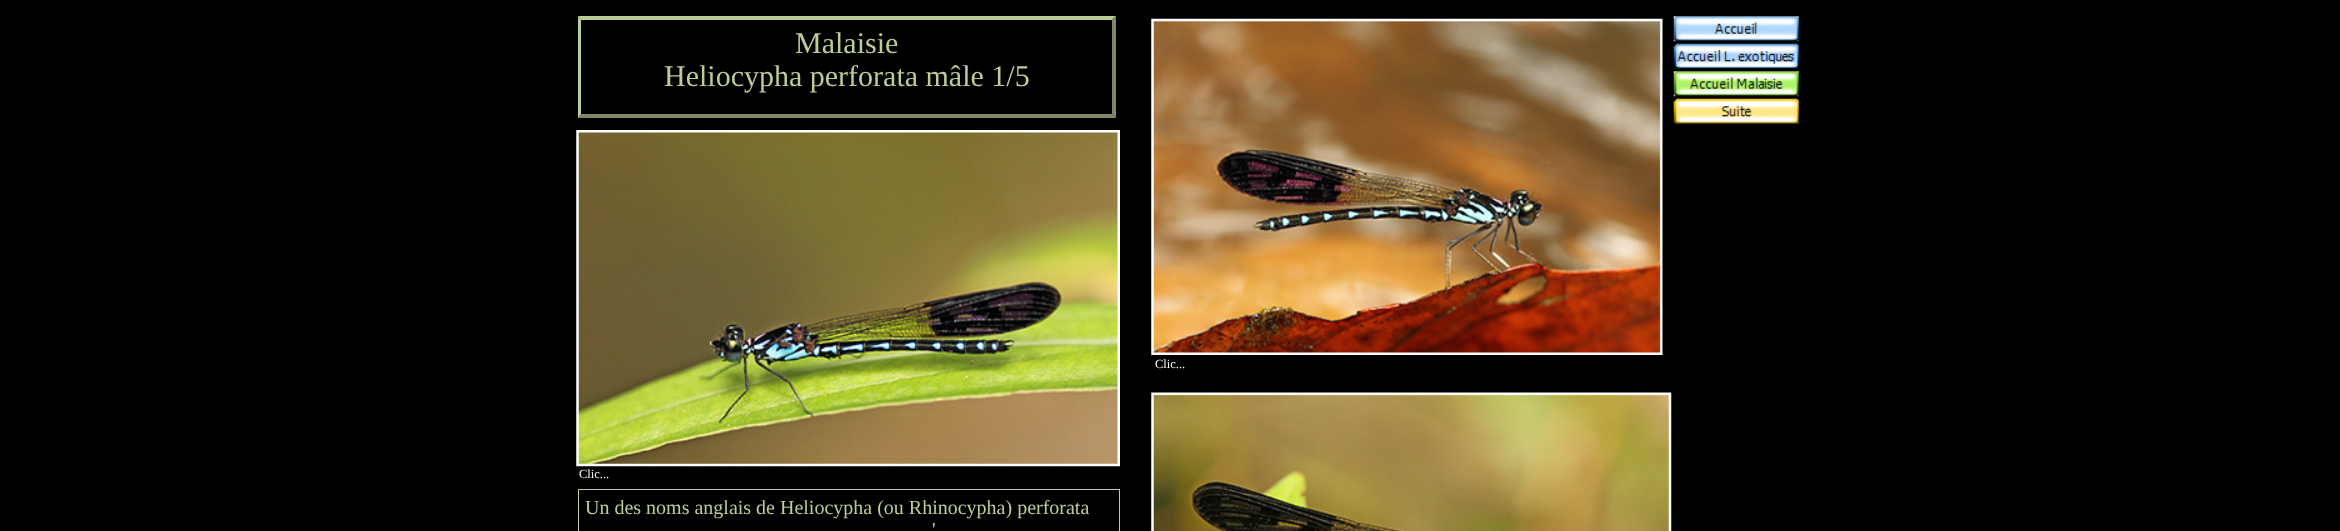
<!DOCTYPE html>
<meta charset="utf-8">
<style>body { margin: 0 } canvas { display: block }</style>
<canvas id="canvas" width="2340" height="531"></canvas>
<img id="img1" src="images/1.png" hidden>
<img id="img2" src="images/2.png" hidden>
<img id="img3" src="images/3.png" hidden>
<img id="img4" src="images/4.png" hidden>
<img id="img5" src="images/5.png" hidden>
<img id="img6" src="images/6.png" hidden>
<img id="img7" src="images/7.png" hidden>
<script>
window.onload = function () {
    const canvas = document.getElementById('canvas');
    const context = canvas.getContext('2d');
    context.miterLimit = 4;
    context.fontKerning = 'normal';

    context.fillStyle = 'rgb(0, 0, 0)';
    context.fillRect(0, 0, 2340, 531);
    context.fillStyle = 'rgb(186, 205, 150)';
    context.beginPath();
    context.moveTo(578, 16);
    context.lineTo(1116, 16);
    context.lineTo(1112, 20);
    context.lineTo(581, 20);
    context.closePath();
    context.fill();
    context.fillStyle = 'rgb(124, 137, 100)';
    context.beginPath();
    context.moveTo(1116, 16);
    context.lineTo(1116, 118);
    context.lineTo(1112, 114);
    context.lineTo(1112, 20);
    context.closePath();
    context.fill();
    context.beginPath();
    context.moveTo(1116, 118);
    context.lineTo(578, 118);
    context.lineTo(581, 114);
    context.lineTo(1112, 114);
    context.closePath();
    context.fill();
    context.fillStyle = 'rgb(186, 205, 150)';
    context.beginPath();
    context.moveTo(578, 118);
    context.lineTo(578, 16);
    context.lineTo(581, 20);
    context.lineTo(581, 114);
    context.closePath();
    context.fill();
    context.drawImage(document.getElementById('img1'), 1151, 18, 512, 337);
    context.drawImage(document.getElementById('img2'), 1673, 16, 126, 26);
    context.drawImage(document.getElementById('img3'), 1673, 43, 126, 26);
    context.drawImage(document.getElementById('img4'), 1673, 71, 126, 26);
    context.drawImage(document.getElementById('img5'), 1673, 98, 126, 26);
    context.drawImage(document.getElementById('img6'), 576, 130, 544, 337);
    context.drawImage(document.getElementById('img7'), 1151, 392, 521, 139);
    context.strokeStyle = 'rgb(186, 205, 150)';
    context.strokeRect(578.5, 489.5, 541, 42);
    context.font = '30px Liberation Serif';
    context.fillText('Malaisie', 795, 53);
    context.fillText('Heliocypha perforata mâle 1/5', 664, 86);
    context.font = '12.5px Liberation Serif';
    context.fillStyle = 'rgb(255, 255, 255)';
    context.fillText('Clic...', 1155, 368);
    context.fillText('Clic...', 579, 478);
    context.font = '20px Liberation Serif';
    context.fillStyle = 'rgb(186, 205, 150)';
    context.fillText('Un des noms anglais de Heliocypha (ou Rhinocypha) perforata', 585, 514);
    context.fillText('\'', 932, 536);
};
</script>
